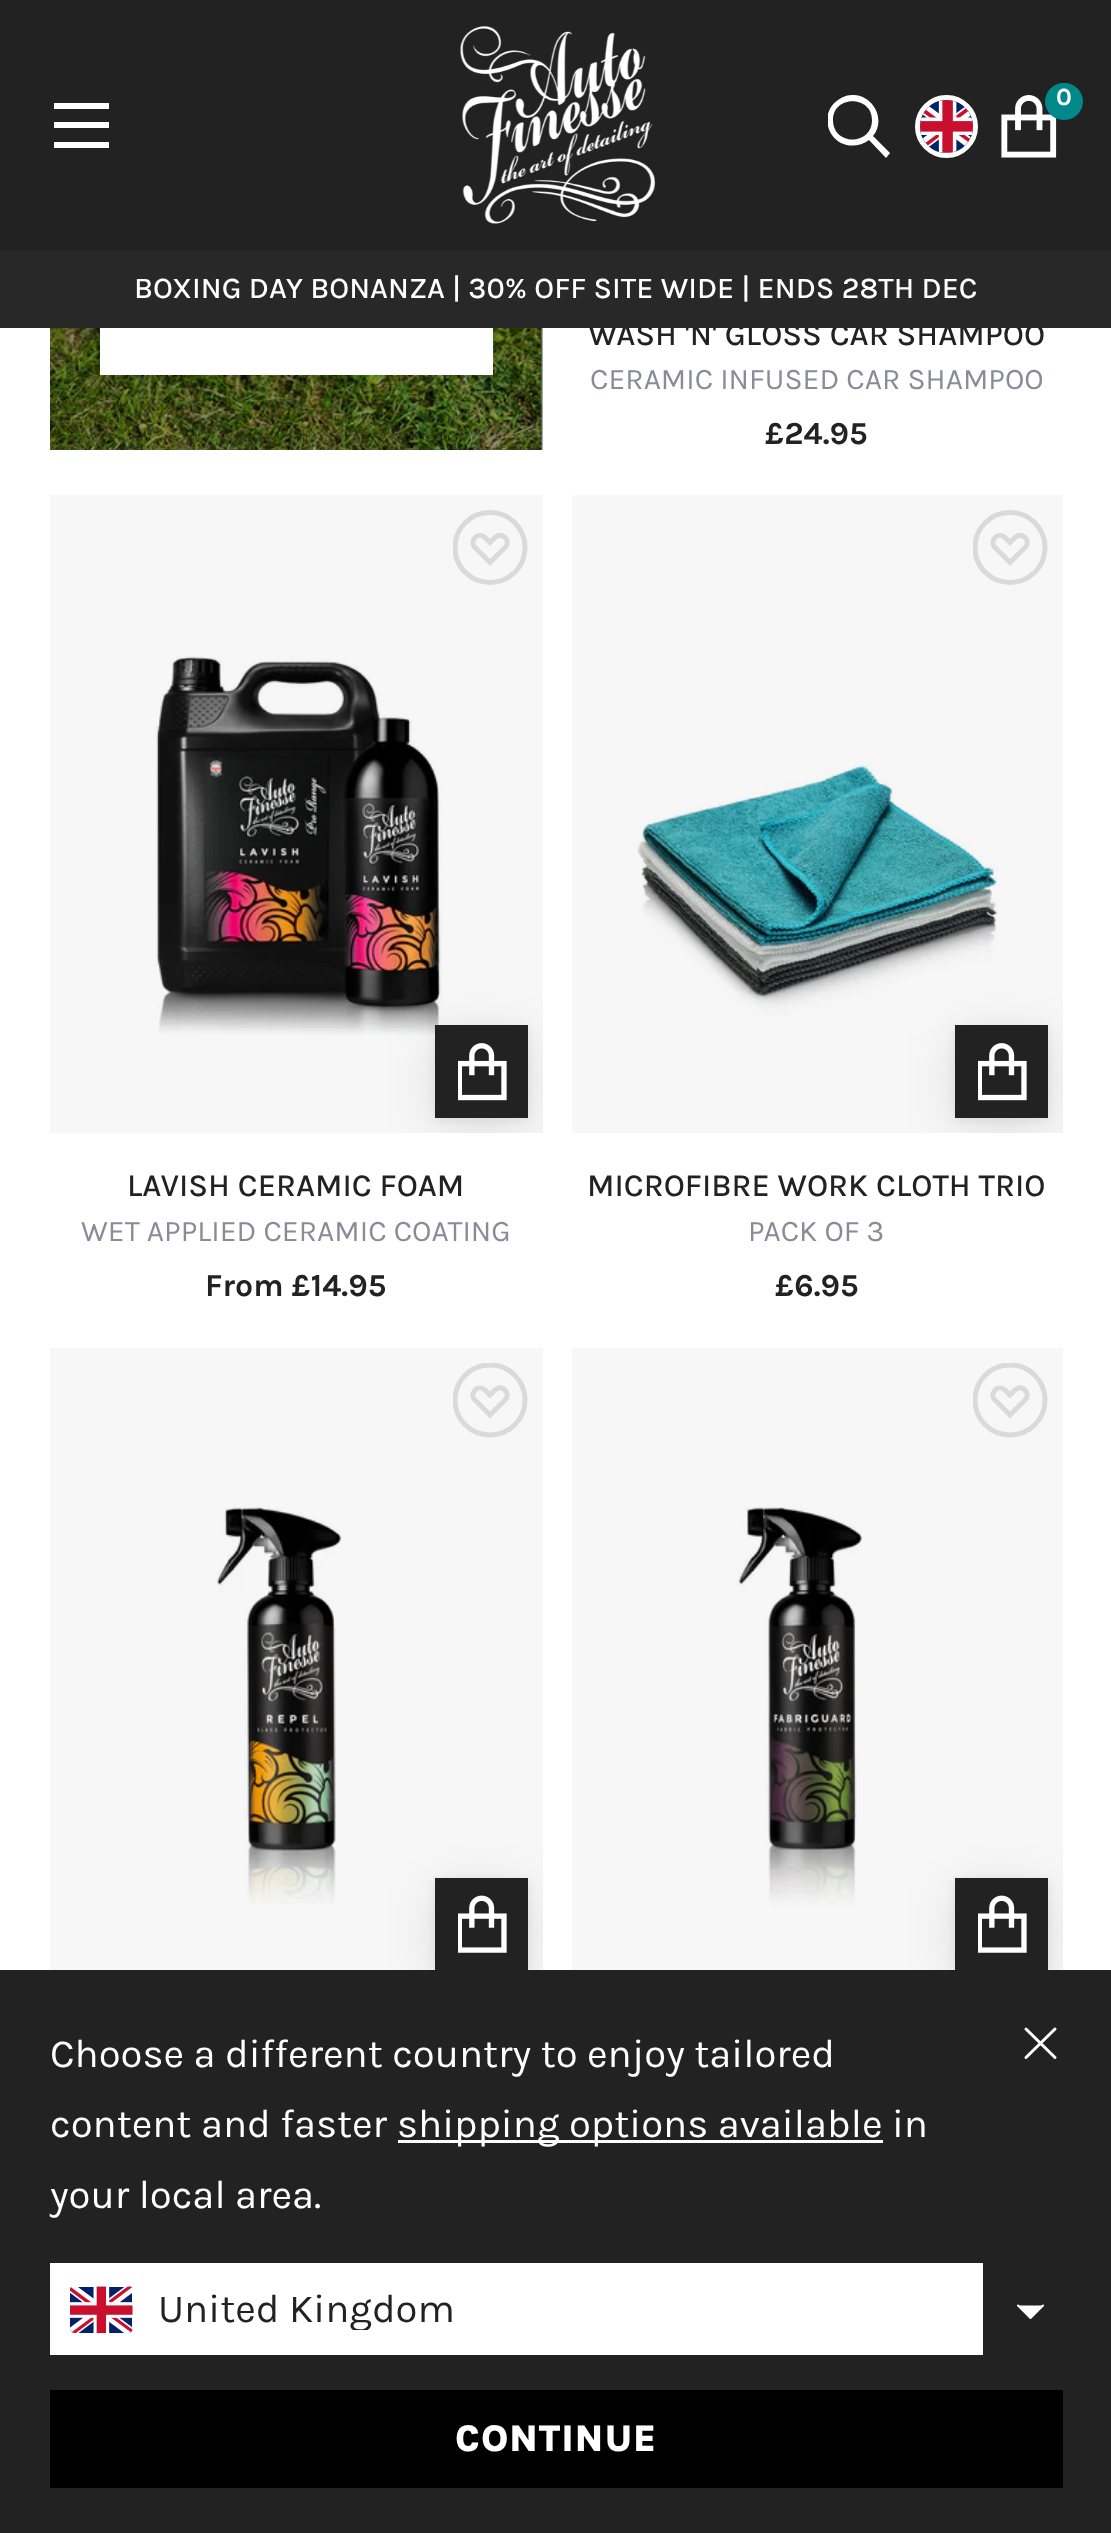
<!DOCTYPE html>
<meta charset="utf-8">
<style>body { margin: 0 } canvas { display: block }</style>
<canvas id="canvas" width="1111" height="2533"></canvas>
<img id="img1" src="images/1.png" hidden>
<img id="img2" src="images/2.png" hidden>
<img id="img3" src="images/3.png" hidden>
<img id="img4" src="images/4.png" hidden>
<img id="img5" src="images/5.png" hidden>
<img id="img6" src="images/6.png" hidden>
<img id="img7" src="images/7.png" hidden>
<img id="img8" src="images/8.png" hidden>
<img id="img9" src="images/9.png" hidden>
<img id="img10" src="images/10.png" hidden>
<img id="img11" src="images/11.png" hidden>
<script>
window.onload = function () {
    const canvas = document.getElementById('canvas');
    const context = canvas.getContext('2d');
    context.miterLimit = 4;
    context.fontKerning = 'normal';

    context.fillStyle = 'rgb(255, 255, 255)';
    context.fillRect(0, 0, 1111, 2533);
    context.fillStyle = 'rgb(166, 166, 166)';
    context.fillRect(541, 328, 2, 122);
    context.fillStyle = 'rgb(34, 34, 34)';
    context.fillRect(0, 0, 1111, 250);
    context.drawImage(document.getElementById('img1'), 460, 26, 196, 198);
    context.fillStyle = 'rgb(255, 255, 255)';
    context.beginPath();
    context.moveTo(54, 103);
    context.lineTo(109, 103);
    context.lineTo(109, 109);
    context.lineTo(54, 109);
    context.closePath();
    context.moveTo(54, 122);
    context.lineTo(109, 122);
    context.lineTo(109, 128);
    context.lineTo(54, 128);
    context.closePath();
    context.moveTo(109, 142);
    context.lineTo(109, 148);
    context.lineTo(54, 148);
    context.lineTo(54, 142);
    context.closePath();
    context.fill();
    context.save();
    context.beginPath();
    context.rect(828, 95, 62, 63);
    context.clip();
    context.beginPath();
    context.moveTo(872, 120);
    context.bezierCurveTo(872, 95, 833, 95, 833, 120);
    context.bezierCurveTo(833, 146, 872, 146, 872, 120);
    context.closePath();
    context.moveTo(869, 140);
    context.bezierCurveTo(857, 149, 840, 147, 832, 135);
    context.bezierCurveTo(827, 128, 826, 118, 829, 111);
    context.bezierCurveTo(832, 104, 837, 100, 843, 97);
    context.bezierCurveTo(867, 87, 889, 116, 873, 136);
    context.lineTo(890, 153);
    context.lineTo(886, 158);
    context.closePath();
    context.fill();
    context.restore();
    context.beginPath();
    context.arc(946.5, 126.5, 29, 0, 2 * Math.PI);
    context.strokeStyle = 'rgb(255, 255, 255)';
    context.lineWidth = 5;
    context.stroke();
    context.drawImage(document.getElementById('img2'), 920, 100, 53, 53);
    context.drawImage(document.getElementById('img3'), 1001, 95, 56, 63);
    context.fillStyle = 'rgb(0, 136, 139)';
    context.beginPath();
    context.roundRect(1045, 83, 38, 37, 18.5);
    context.fill();
    context.drawImage(document.getElementById('img4'), 50, 328, 492, 122);
    context.fillStyle = 'rgb(255, 255, 255)';
    context.fillRect(100, 328, 393, 47);
    context.fillStyle = 'rgb(247, 247, 247)';
    context.fillRect(50, 495, 493, 638);
    context.drawImage(document.getElementById('img5'), 155, 656, 288, 380);
    context.fillStyle = 'rgba(0, 0, 0, 0.07)';
    context.filter = 'blur(4px)';
    context.beginPath();
    context.rect(435, 1028, 93, 92);
    context.fill();
    context.filter = 'none';
    context.save();
    context.beginPath();
    context.rect(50, 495, 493, 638);
    context.clip();
    context.fillStyle = 'rgba(0, 0, 0, 0.1)';
    context.filter = 'blur(25px)';
    context.beginPath();
    context.rect(435, 1035, 93, 93);
    context.fill();
    context.filter = 'none';
    context.restore();
    context.fillStyle = 'rgb(34, 34, 34)';
    context.fillRect(435, 1025, 93, 93);
    context.drawImage(document.getElementById('img6'), 458, 1043, 49, 58);
    context.beginPath();
    context.moveTo(485, 537.5);
    context.lineTo(490, 542.5);
    context.lineTo(495, 537.5);
    context.bezierCurveTo(498, 534.5, 502, 534.5, 505, 537.5);
    context.bezierCurveTo(508, 540.5, 508, 544.5, 505, 547.5);
    context.lineTo(490, 562.5);
    context.lineTo(474, 546.5);
    context.bezierCurveTo(469.5, 539.5, 479, 531.5, 485, 537.5);
    context.closePath();
    context.strokeStyle = 'rgb(218, 218, 218)';
    context.stroke();
    context.save();
    context.beginPath();
    context.rect(453, 510, 75, 75);
    context.clip();
    context.beginPath();
    context.moveTo(455, 547.5);
    context.bezierCurveTo(455, 567, 470.5, 582.5, 490, 582.5);
    context.bezierCurveTo(509.5, 582.5, 525, 567, 525, 547.5);
    context.bezierCurveTo(525, 528, 509.5, 512.5, 490, 512.5);
    context.bezierCurveTo(470.5, 512.5, 455, 528, 455, 547.5);
    context.closePath();
    context.stroke();
    context.restore();
    context.fillStyle = 'rgb(247, 247, 247)';
    context.fillRect(573, 495, 490, 638);
    context.drawImage(document.getElementById('img7'), 572, 496, 426, 637);
    context.fillStyle = 'rgba(0, 0, 0, 0.07)';
    context.filter = 'blur(4px)';
    context.beginPath();
    context.rect(955, 1028, 93, 92);
    context.fill();
    context.filter = 'none';
    context.save();
    context.beginPath();
    context.rect(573, 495, 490, 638);
    context.clip();
    context.fillStyle = 'rgba(0, 0, 0, 0.1)';
    context.filter = 'blur(25px)';
    context.beginPath();
    context.rect(955, 1035, 93, 93);
    context.fill();
    context.filter = 'none';
    context.restore();
    context.fillStyle = 'rgb(34, 34, 34)';
    context.fillRect(955, 1025, 93, 93);
    context.drawImage(document.getElementById('img6'), 978, 1043, 49, 58);
    context.beginPath();
    context.moveTo(1005, 537.5);
    context.lineTo(1010, 542.5);
    context.lineTo(1015, 537.5);
    context.bezierCurveTo(1018, 534.5, 1022, 534.5, 1025, 537.5);
    context.bezierCurveTo(1028, 540.5, 1028, 544.5, 1025, 547.5);
    context.lineTo(1010, 562.5);
    context.lineTo(994, 546.5);
    context.bezierCurveTo(989.5, 539.5, 999, 531.5, 1005, 537.5);
    context.closePath();
    context.stroke();
    context.save();
    context.beginPath();
    context.rect(973, 510, 75, 75);
    context.clip();
    context.beginPath();
    context.moveTo(975, 547.5);
    context.bezierCurveTo(975, 567, 990.5, 582.5, 1010, 582.5);
    context.bezierCurveTo(1029.5, 582.5, 1045, 567, 1045, 547.5);
    context.bezierCurveTo(1045, 528, 1029.5, 512.5, 1010, 512.5);
    context.bezierCurveTo(990.5, 512.5, 975, 528, 975, 547.5);
    context.closePath();
    context.stroke();
    context.restore();
    context.fillStyle = 'rgb(247, 247, 247)';
    context.fillRect(50, 1348, 493, 622);
    context.drawImage(document.getElementById('img8'), 217, 1507, 125, 397);
    context.fillStyle = 'rgba(0, 0, 0, 0.07)';
    context.filter = 'blur(4px)';
    context.beginPath();
    context.rect(435, 1880, 93, 93);
    context.fill();
    context.filter = 'none';
    context.save();
    context.beginPath();
    context.rect(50, 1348, 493, 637);
    context.clip();
    context.fillStyle = 'rgba(0, 0, 0, 0.1)';
    context.filter = 'blur(25px)';
    context.beginPath();
    context.rect(435, 1888, 93, 92);
    context.fill();
    context.filter = 'none';
    context.restore();
    context.fillStyle = 'rgb(34, 34, 34)';
    context.fillRect(435, 1878, 93, 92);
    context.drawImage(document.getElementById('img9'), 458, 1895, 49, 58);
    context.beginPath();
    context.moveTo(485, 1390);
    context.lineTo(490, 1395);
    context.lineTo(495, 1390);
    context.bezierCurveTo(498, 1387, 502, 1387, 505, 1390);
    context.bezierCurveTo(508, 1393, 508, 1397, 505, 1400);
    context.lineTo(490, 1415);
    context.lineTo(474, 1399);
    context.bezierCurveTo(469.5, 1392, 479, 1384, 485, 1390);
    context.closePath();
    context.stroke();
    context.save();
    context.beginPath();
    context.rect(453, 1363, 75, 75);
    context.clip();
    context.beginPath();
    context.moveTo(455, 1400);
    context.bezierCurveTo(455, 1419.5, 470.5, 1435, 490, 1435);
    context.bezierCurveTo(509.5, 1435, 525, 1419.5, 525, 1400);
    context.bezierCurveTo(525, 1380.5, 509.5, 1365, 490, 1365);
    context.bezierCurveTo(470.5, 1365, 455, 1380.5, 455, 1400);
    context.closePath();
    context.stroke();
    context.restore();
    context.fillStyle = 'rgb(247, 247, 247)';
    context.fillRect(863, 1348, 200, 622);
    context.drawImage(document.getElementById('img10'), 572, 1348, 291, 622);
    context.fillStyle = 'rgba(0, 0, 0, 0.07)';
    context.filter = 'blur(4px)';
    context.beginPath();
    context.rect(955, 1880, 93, 93);
    context.fill();
    context.filter = 'none';
    context.save();
    context.beginPath();
    context.rect(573, 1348, 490, 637);
    context.clip();
    context.fillStyle = 'rgba(0, 0, 0, 0.1)';
    context.filter = 'blur(25px)';
    context.beginPath();
    context.rect(955, 1888, 93, 92);
    context.fill();
    context.filter = 'none';
    context.restore();
    context.fillStyle = 'rgb(34, 34, 34)';
    context.fillRect(955, 1878, 93, 92);
    context.drawImage(document.getElementById('img9'), 978, 1895, 49, 58);
    context.beginPath();
    context.moveTo(1005, 1390);
    context.lineTo(1010, 1395);
    context.lineTo(1015, 1390);
    context.bezierCurveTo(1018, 1387, 1022, 1387, 1025, 1390);
    context.bezierCurveTo(1028, 1393, 1028, 1397, 1025, 1400);
    context.lineTo(1010, 1415);
    context.lineTo(994, 1399);
    context.bezierCurveTo(989.5, 1392, 999, 1384, 1005, 1390);
    context.closePath();
    context.stroke();
    context.save();
    context.beginPath();
    context.rect(973, 1363, 75, 75);
    context.clip();
    context.beginPath();
    context.moveTo(975, 1400);
    context.bezierCurveTo(975, 1419.5, 990.5, 1435, 1010, 1435);
    context.bezierCurveTo(1029.5, 1435, 1045, 1419.5, 1045, 1400);
    context.bezierCurveTo(1045, 1380.5, 1029.5, 1365, 1010, 1365);
    context.bezierCurveTo(990.5, 1365, 975, 1380.5, 975, 1400);
    context.closePath();
    context.stroke();
    context.restore();
    context.fillRect(0, 1970, 1111, 563);
    context.fillStyle = 'rgb(255, 255, 255)';
    context.fillRect(398, 2140, 485, 3);
    context.beginPath();
    context.moveTo(1026, 2057.5);
    context.lineTo(1055, 2029);
    context.moveTo(1026, 2029);
    context.lineTo(1055, 2057.5);
    context.strokeStyle = 'rgb(255, 255, 255)';
    context.lineWidth = 3;
    context.lineCap = 'round';
    context.lineJoin = 'round';
    context.stroke();
    context.fillRect(50, 2263, 933, 92);
    context.drawImage(document.getElementById('img11'), 70, 2286, 63, 47);
    context.beginPath();
    context.moveTo(1043, 2305.5);
    context.lineTo(1030.5, 2318);
    context.lineTo(1018, 2305.5);
    context.fill();
    context.lineWidth = 2.1;
    context.stroke();
    context.fillStyle = 'rgb(0, 0, 0)';
    context.fillRect(50, 2390, 1013, 98);
    context.font = 'bold 25px Karla';
    context.fillStyle = 'rgb(255, 255, 255)';
    context.fillText('0', 1056, 105);
    context.font = '500 32px Karla';
    context.fillStyle = 'rgb(34, 34, 34)';
    context.fillText('WASH \'N\' GLOSS CAR SHAMPOO', 588, 345);
    context.fillStyle = 'rgb(40, 40, 40)';
    context.fillRect(0, 250, 1111, 78);
    context.font = '500 30px Karla';
    context.fillStyle = 'rgb(255, 255, 255)';
    context.fillText('BOXING DAY BONANZA | 30% OFF SITE WIDE | ENDS 28TH DEC', 134, 298);
    context.font = '30px Karla';
    context.fillStyle = 'rgb(138, 138, 152)';
    context.fillText('CERAMIC INFUSED CAR SHAMPOO', 590, 389);
    context.font = 'bold 32px Karla';
    context.fillStyle = 'rgb(34, 34, 34)';
    context.fillText('£24.95', 765, 444);
    context.font = '500 32px Karla';
    context.fillText('LAVISH CERAMIC FOAM', 127, 1196);
    context.font = '30px Karla';
    context.fillStyle = 'rgb(138, 138, 152)';
    context.fillText('WET APPLIED CERAMIC COATING', 81, 1241);
    context.font = 'bold 32px Karla';
    context.fillStyle = 'rgb(34, 34, 34)';
    context.fillText('From £14.95', 205, 1296);
    context.font = '500 32px Karla';
    context.fillText('MICROFIBRE WORK CLOTH TRIO', 587, 1196);
    context.font = '30px Karla';
    context.fillStyle = 'rgb(138, 138, 152)';
    context.fillText('PACK OF 3', 748, 1241);
    context.font = 'bold 32px Karla';
    context.fillStyle = 'rgb(34, 34, 34)';
    context.fillText('£6.95', 775, 1296);
    context.font = '40px Karla';
    context.fillStyle = 'rgb(255, 255, 255)';
    context.fillText('Choose a different country to enjoy tailored', 50, 2067);
    context.fillText('content and faster', 50, 2137);
    context.fillText('shipping options available in', 397, 2137);
    context.fillText('your local area.', 50, 2208);
    context.save();
    context.beginPath();
    context.rect(158, 2288, 787, 42);
    context.clip();
    context.fillStyle = 'rgb(34, 34, 34)';
    context.fillText('United Kingdom', 158, 2322);
    context.restore();
    context.letterSpacing = '1px';
    context.font = '800 38px Karla';
    context.fillText('CONTINUE', 455, 2451);
};
</script>
